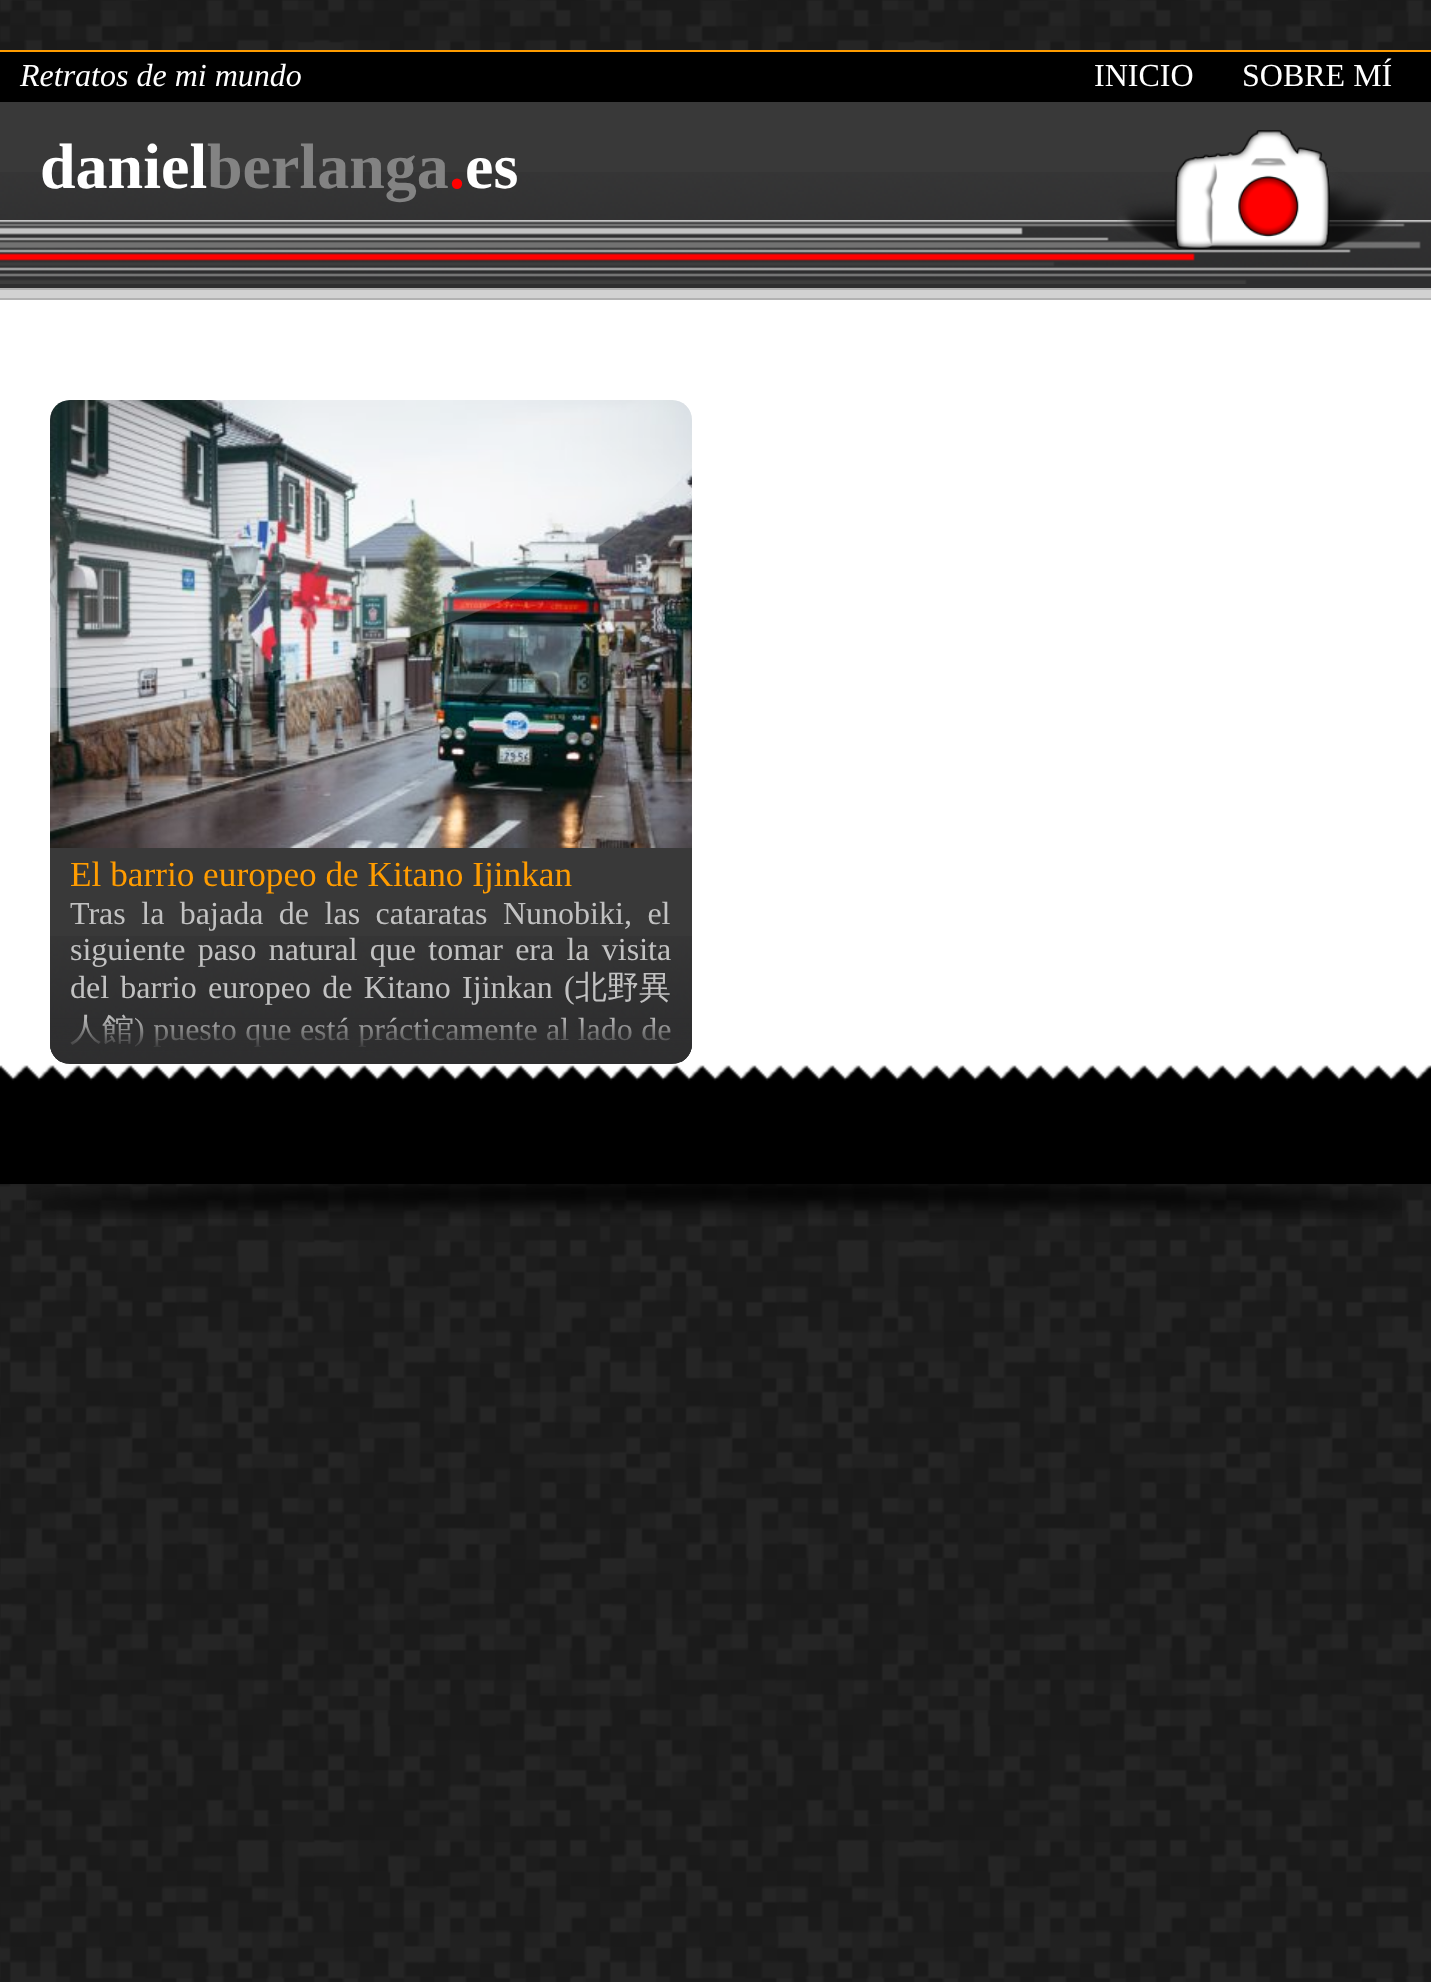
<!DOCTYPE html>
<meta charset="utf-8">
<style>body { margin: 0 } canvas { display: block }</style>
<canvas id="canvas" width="1431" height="1982"></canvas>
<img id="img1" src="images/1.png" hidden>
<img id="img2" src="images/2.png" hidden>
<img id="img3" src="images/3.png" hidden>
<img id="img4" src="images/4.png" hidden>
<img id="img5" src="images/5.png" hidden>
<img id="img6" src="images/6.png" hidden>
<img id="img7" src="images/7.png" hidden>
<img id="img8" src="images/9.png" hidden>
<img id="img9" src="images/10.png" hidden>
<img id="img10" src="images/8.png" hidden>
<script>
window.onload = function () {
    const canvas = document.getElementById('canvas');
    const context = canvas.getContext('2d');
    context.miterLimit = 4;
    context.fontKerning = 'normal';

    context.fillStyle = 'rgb(255, 255, 255)';
    context.fillRect(0, 0, 1431, 1982);
    context.drawImage(document.getElementById('img1'), 0, 0, 1431, 1982);
    context.fillRect(0, 300, 1431, 762);
    context.fillStyle = 'rgb(57, 57, 57)';
    context.fillRect(0, 102, 1431, 70);
    context.drawImage(document.getElementById('img2'), 0, 172, 1431, 116);
    context.drawImage(document.getElementById('img3'), 0, 220, 1431, 64);
    context.fillStyle = 'rgb(0, 0, 0)';
    context.fillRect(0, 52, 1431, 50);
    context.fillStyle = 'rgb(255, 156, 0)';
    context.fillRect(0, 50, 1431, 2);
    context.drawImage(document.getElementById('img4'), 1117, 130, 279, 120);
    context.fillStyle = 'rgb(210, 210, 210)';
    context.fillRect(0, 290, 1431, 8);
    context.fillStyle = 'rgb(178, 178, 178)';
    context.fillRect(0, 288, 1431, 2);
    context.fillRect(0, 298, 1431, 2);
    context.drawImage(document.getElementById('img5'), 50, 400, 642, 448);
    context.drawImage(document.getElementById('img6'), 50, 400, 642, 288);
    context.fillStyle = 'rgb(57, 57, 57)';
    context.beginPath();
    context.roundRect(50, 848, 642, 216, [0, 0, 20, 20]);
    context.fill();
    context.drawImage(document.getElementById('img7'), 50, 936, 642, 126);
    context.fillStyle = 'rgb(0, 0, 0)';
    context.fillRect(0, 1084, 1431, 100);
    context.drawImage(document.getElementById('img8'), 0, 1062, 1431, 22);
    context.drawImage(document.getElementById('img9'), 26, 1184, 1376, 35);
    context.font = 'italic 32px Liberation Serif';
    context.fillStyle = 'rgb(255, 255, 255)';
    context.fillText('Retratos de mi mundo', 20, 86);
    context.font = '32px Liberation Serif';
    context.fillText('INICIO', 1094, 86);
    context.fillText('SOBRE MÍ', 1242, 86);
    context.font = 'bold 64px Liberation Serif';
    context.fillText('daniel', 40, 188);
    context.fillStyle = 'rgb(131, 131, 131)';
    context.fillText('berlanga', 207, 188);
    context.fillStyle = 'rgb(255, 0, 0)';
    context.fillText('.', 449, 188);
    context.fillStyle = 'rgb(255, 255, 255)';
    context.fillText('es', 465, 188);
    context.font = '35.25px Liberation Serif';
    context.fillStyle = 'rgb(255, 156, 0)';
    context.fillText('El barrio europeo de Kitano Ijinkan', 70, 886);
    context.wordSpacing = '7.5px';
    context.font = '32px Liberation Serif';
    context.fillStyle = 'rgb(194, 194, 194)';
    context.fillText('Tras la bajada de las cataratas Nunobiki, el', 70, 924);
    context.wordSpacing = '4.25px';
    context.fillText('siguiente paso natural que tomar era la visita', 70, 960);
    context.wordSpacing = '3.25px';
    context.fillText('del barrio europeo de Kitano Ijinkan (', 70, 998);
    context.wordSpacing = '0px';
    context.font = '500 32px WenQuanYi Zen Hei';
    context.fillText('北野異', 575, 998);
    context.fillText('人館', 70, 1040);
    context.wordSpacing = '0.5px';
    context.font = '32px Liberation Serif';
    context.fillText(') puesto que está prácticamente al lado de', 134, 1040);
    context.drawImage(document.getElementById('img10'), 50, 1015, 642, 49);
};
</script>
